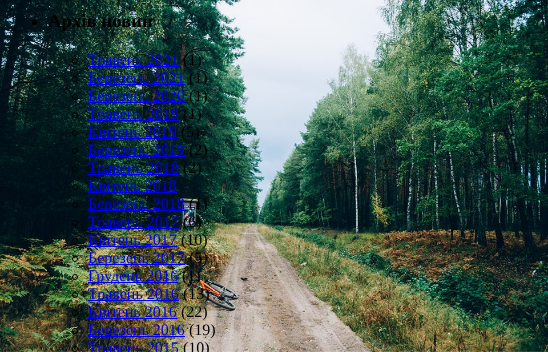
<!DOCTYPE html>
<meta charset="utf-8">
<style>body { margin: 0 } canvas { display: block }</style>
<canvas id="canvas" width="548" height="352"></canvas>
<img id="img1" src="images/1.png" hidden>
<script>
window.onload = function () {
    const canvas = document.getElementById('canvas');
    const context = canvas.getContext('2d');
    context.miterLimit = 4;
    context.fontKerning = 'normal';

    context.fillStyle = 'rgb(255, 255, 255)';
    context.fillRect(0, 0, 548, 352);
    context.drawImage(document.getElementById('img1'), 0, 0, 548, 352);
    context.fillStyle = 'rgb(0, 0, 0)';
    context.beginPath();
    context.arc(34.5, 22.5, 2.5, 0, 2 * Math.PI);
    context.fill();
    context.beginPath();
    context.arc(75, 61, 2.5, 0, 2 * Math.PI);
    context.strokeStyle = 'rgb(0, 0, 0)';
    context.stroke();
    context.fillStyle = 'rgb(0, 0, 238)';
    context.fillRect(88, 66, 91, 1);
    context.beginPath();
    context.arc(75, 79, 2.5, 0, 2 * Math.PI);
    context.stroke();
    context.fillRect(88, 84, 97, 1);
    context.beginPath();
    context.arc(75, 97, 2.5, 0, 2 * Math.PI);
    context.stroke();
    context.fillRect(88, 102, 97, 1);
    context.beginPath();
    context.arc(75, 115, 2.5, 0, 2 * Math.PI);
    context.stroke();
    context.fillRect(88, 120, 91, 1);
    context.beginPath();
    context.arc(75, 133, 2.5, 0, 2 * Math.PI);
    context.stroke();
    context.fillRect(88, 138, 89, 1);
    context.beginPath();
    context.arc(75, 151, 2.5, 0, 2 * Math.PI);
    context.stroke();
    context.fillRect(88, 156, 97, 1);
    context.beginPath();
    context.arc(75, 169, 2.5, 0, 2 * Math.PI);
    context.stroke();
    context.fillRect(88, 174, 91, 1);
    context.beginPath();
    context.arc(75, 187, 2.5, 0, 2 * Math.PI);
    context.stroke();
    context.fillRect(88, 192, 89, 1);
    context.beginPath();
    context.arc(75, 205, 2.5, 0, 2 * Math.PI);
    context.stroke();
    context.fillRect(88, 210, 97, 1);
    context.beginPath();
    context.arc(75, 223, 2.5, 0, 2 * Math.PI);
    context.stroke();
    context.fillRect(88, 228, 91, 1);
    context.beginPath();
    context.arc(75, 241, 2.5, 0, 2 * Math.PI);
    context.stroke();
    context.fillRect(88, 246, 89, 1);
    context.beginPath();
    context.arc(75, 259, 2.5, 0, 2 * Math.PI);
    context.stroke();
    context.fillRect(88, 264, 97, 1);
    context.beginPath();
    context.arc(75, 277, 2.5, 0, 2 * Math.PI);
    context.stroke();
    context.fillRect(88, 282, 90, 1);
    context.beginPath();
    context.arc(75, 295, 2.5, 0, 2 * Math.PI);
    context.stroke();
    context.fillRect(88, 300, 91, 1);
    context.beginPath();
    context.arc(75, 313, 2.5, 0, 2 * Math.PI);
    context.stroke();
    context.fillRect(88, 318, 89, 1);
    context.beginPath();
    context.arc(75, 331, 2.5, 0, 2 * Math.PI);
    context.stroke();
    context.fillRect(88, 336, 97, 1);
    context.beginPath();
    context.arc(75, 349, 2.5, 0, 2 * Math.PI);
    context.stroke();
    context.font = 'bold 18.75px Liberation Serif';
    context.fillStyle = 'rgb(0, 0, 0)';
    context.fillText('Архів новин', 48, 27);
    context.font = '16px Liberation Serif';
    context.fillStyle = 'rgb(0, 0, 238)';
    context.fillText('Травень 2021', 88, 65);
    context.fillStyle = 'rgb(0, 0, 0)';
    context.fillText('(1)', 183, 65);
    context.fillStyle = 'rgb(0, 0, 238)';
    context.fillText('Березень 2021', 88, 83);
    context.fillStyle = 'rgb(0, 0, 0)';
    context.fillText('(1)', 189, 83);
    context.fillStyle = 'rgb(0, 0, 238)';
    context.fillText('Березень 2020', 88, 101);
    context.fillStyle = 'rgb(0, 0, 0)';
    context.fillText('(1)', 189, 101);
    context.fillStyle = 'rgb(0, 0, 238)';
    context.fillText('Травень 2019', 88, 119);
    context.fillStyle = 'rgb(0, 0, 0)';
    context.fillText('(1)', 183, 119);
    context.fillStyle = 'rgb(0, 0, 238)';
    context.fillText('Квітень 2019', 88, 137);
    context.fillStyle = 'rgb(0, 0, 0)';
    context.fillText('(5)', 181, 137);
    context.fillStyle = 'rgb(0, 0, 238)';
    context.fillText('Березень 2019', 88, 155);
    context.fillStyle = 'rgb(0, 0, 0)';
    context.fillText('(2)', 189, 155);
    context.fillStyle = 'rgb(0, 0, 238)';
    context.fillText('Травень 2018', 88, 173);
    context.fillStyle = 'rgb(0, 0, 0)';
    context.fillText('(2)', 183, 173);
    context.fillStyle = 'rgb(0, 0, 238)';
    context.fillText('Квітень 2018', 88, 191);
    context.fillText('Березень 2018', 88, 209);
    context.fillStyle = 'rgb(0, 0, 0)';
    context.fillText('(1)', 189, 209);
    context.fillStyle = 'rgb(0, 0, 238)';
    context.fillText('Травень 2017', 88, 227);
    context.fillStyle = 'rgb(0, 0, 0)';
    context.fillText('(6)', 183, 227);
    context.fillStyle = 'rgb(0, 0, 238)';
    context.fillText('Квітень 2017', 88, 245);
    context.fillStyle = 'rgb(0, 0, 0)';
    context.fillText('(10)', 181, 245);
    context.fillStyle = 'rgb(0, 0, 238)';
    context.fillText('Березень 2017', 88, 263);
    context.fillStyle = 'rgb(0, 0, 0)';
    context.fillText('(5)', 189, 263);
    context.fillStyle = 'rgb(0, 0, 238)';
    context.fillText('Грудень 2016', 88, 281);
    context.fillStyle = 'rgb(0, 0, 0)';
    context.fillText('(1)', 182, 281);
    context.fillStyle = 'rgb(0, 0, 238)';
    context.fillText('Травень 2016', 88, 299);
    context.fillStyle = 'rgb(0, 0, 0)';
    context.fillText('(13)', 183, 299);
    context.fillStyle = 'rgb(0, 0, 238)';
    context.fillText('Квітень 2016', 88, 317);
    context.fillStyle = 'rgb(0, 0, 0)';
    context.fillText('(22)', 181, 317);
    context.fillStyle = 'rgb(0, 0, 238)';
    context.fillText('Березень 2016', 88, 335);
    context.fillStyle = 'rgb(0, 0, 0)';
    context.fillText('(19)', 189, 335);
    context.fillStyle = 'rgb(0, 0, 238)';
    context.fillText('Травень 2015', 88, 353);
    context.fillStyle = 'rgb(0, 0, 0)';
    context.fillText('(10)', 183, 353);
};
</script>
